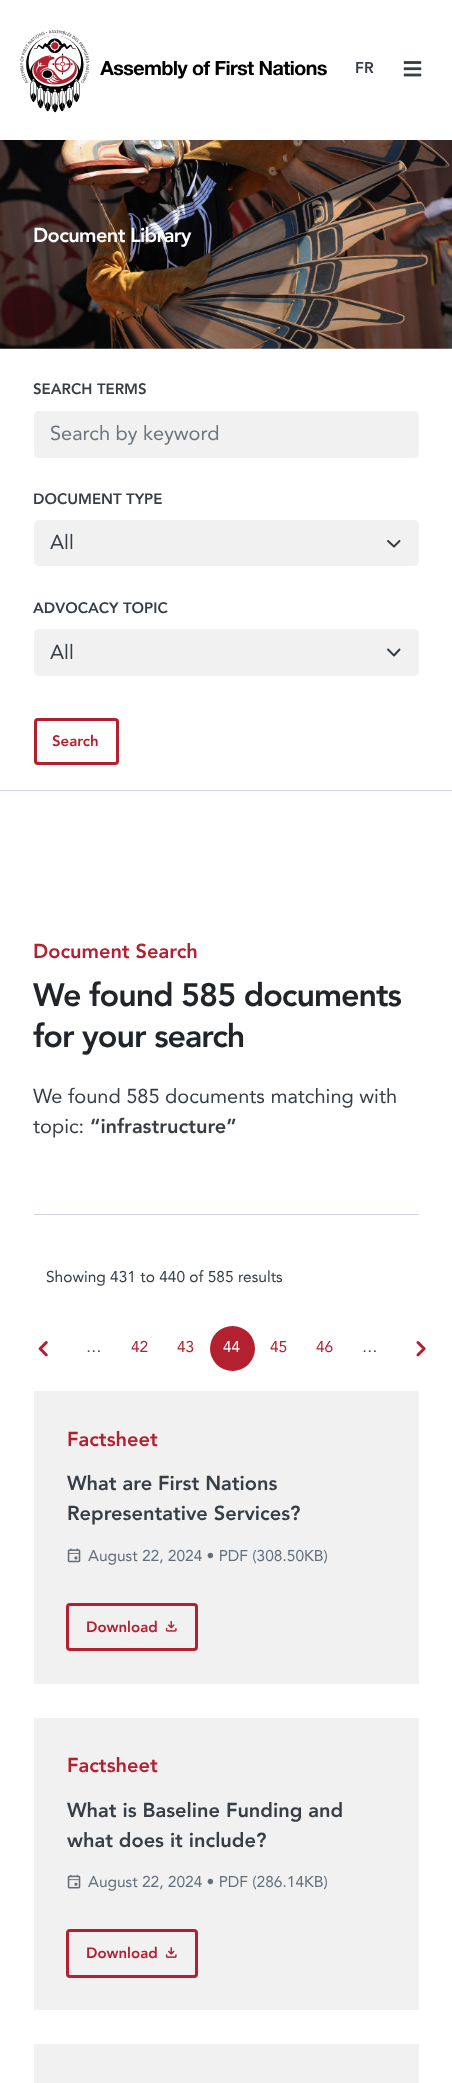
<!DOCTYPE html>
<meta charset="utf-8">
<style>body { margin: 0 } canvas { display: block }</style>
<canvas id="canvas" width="452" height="2083"></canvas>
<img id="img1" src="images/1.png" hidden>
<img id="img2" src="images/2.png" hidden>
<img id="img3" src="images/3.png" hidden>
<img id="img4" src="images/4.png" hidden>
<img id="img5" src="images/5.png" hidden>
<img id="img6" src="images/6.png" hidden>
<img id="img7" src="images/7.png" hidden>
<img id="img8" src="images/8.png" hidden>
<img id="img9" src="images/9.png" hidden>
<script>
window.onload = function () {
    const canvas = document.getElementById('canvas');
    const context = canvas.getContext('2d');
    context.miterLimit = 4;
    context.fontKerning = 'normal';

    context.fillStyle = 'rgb(255, 255, 255)';
    context.fillRect(0, 0, 452, 2083);
    context.drawImage(document.getElementById('img1'), 20, 30, 307, 83);
    context.drawImage(document.getElementById('img2'), 403, 61, 19, 16);
    context.drawImage(document.getElementById('img3'), 0, 140, 452, 209);
    context.fillStyle = 'rgb(206, 212, 218)';
    context.fillRect(0, 790, 452, 1);
    context.fillStyle = 'rgb(241, 241, 241)';
    context.beginPath();
    context.roundRect(34, 411, 385, 47, 5);
    context.fill();
    context.beginPath();
    context.roundRect(34, 520, 385, 46, 5);
    context.fill();
    context.beginPath();
    context.moveTo(388, 541);
    context.lineTo(394, 546.5);
    context.lineTo(399.5, 541);
    context.strokeStyle = 'rgb(52, 58, 64)';
    context.lineWidth = 1.9;
    context.lineCap = 'round';
    context.lineJoin = 'round';
    context.stroke();
    context.beginPath();
    context.roundRect(34, 629, 385, 47, 5);
    context.fill();
    context.beginPath();
    context.moveTo(388, 649.5);
    context.lineTo(394, 655.5);
    context.lineTo(399.5, 649.5);
    context.stroke();
    context.beginPath();
    context.roundRect(35.5, 719.5, 82, 44, 2.5);
    context.strokeStyle = 'rgb(179, 32, 47)';
    context.lineWidth = 3;
    context.lineJoin = 'miter';
    context.stroke();
    context.fillStyle = 'rgb(206, 212, 218)';
    context.fillRect(34, 1214, 385, 1);
    context.drawImage(document.getElementById('img4'), 38, 1341, 10, 16);
    context.fillStyle = 'rgb(179, 32, 47)';
    context.beginPath();
    context.arc(232.5, 1348.5, 22.5, 0, 2 * Math.PI);
    context.fill();
    context.drawImage(document.getElementById('img5'), 416, 1341, 10, 16);
    context.fillStyle = 'rgb(241, 241, 241)';
    context.fillRect(34, 1391, 385, 293);
    context.drawImage(document.getElementById('img6'), 67, 1548, 14, 15);
    context.beginPath();
    context.roundRect(67.5, 1604.5, 129, 45, 2.5);
    context.stroke();
    context.drawImage(document.getElementById('img7'), 165, 1620, 12, 12);
    context.fillRect(34, 1718, 385, 292);
    context.drawImage(document.getElementById('img8'), 67, 1874, 14, 15);
    context.beginPath();
    context.roundRect(67.5, 1930.5, 129, 46, 2.5);
    context.stroke();
    context.drawImage(document.getElementById('img9'), 165, 1947, 12, 11);
    context.fillRect(34, 2044, 385, 39);
    context.font = '900 15.5px Avenir';
    context.fillStyle = 'rgb(55, 62, 69)';
    context.fillText('FR', 355, 73);
    context.letterSpacing = '-0.6px';
    context.font = '900 20px Avenir';
    context.fillStyle = 'rgb(255, 255, 255)';
    context.fillText('Document Library', 33, 242);
    context.letterSpacing = '0px';
    context.font = '900 15px Avenir';
    context.fillStyle = 'rgb(55, 62, 69)';
    context.fillText('SEARCH TERMS', 33, 394);
    context.font = '20px Avenir';
    context.fillStyle = 'rgb(108, 117, 125)';
    context.fillText('Search by keyword', 50, 440);
    context.font = '900 15px Avenir';
    context.fillStyle = 'rgb(55, 62, 69)';
    context.fillText('DOCUMENT TYPE', 33, 504);
    context.font = '20px Avenir';
    context.fillText('All', 50, 549);
    context.font = '900 15px Avenir';
    context.fillText('ADVOCACY TOPIC', 33, 613);
    context.font = '20px Avenir';
    context.fillText('All', 50, 659);
    context.font = '900 15px Avenir';
    context.fillStyle = 'rgb(179, 32, 47)';
    context.fillText('Search', 52, 746);
    context.font = '900 20px Avenir';
    context.fillText('Document Search', 33, 958);
    context.letterSpacing = '-1px';
    context.font = '900 32.25px Avenir';
    context.fillStyle = 'rgb(33, 37, 41)';
    context.fillText('We found 585 documents', 33, 1006);
    context.fillText('for your search', 33, 1047);
    context.letterSpacing = '0px';
    context.font = '20px Avenir';
    context.fillStyle = 'rgb(55, 62, 69)';
    context.fillText('We found 585 documents matching with', 33, 1103);
    context.fillText('topic:', 33, 1133);
    context.font = '900 20px Avenir';
    context.fillText('“infrastructure”', 90, 1133);
    context.font = '15.5px Avenir';
    context.fillText('Showing 431 to 440 of 585 results', 46, 1282);
    context.fillText('…', 86, 1352);
    context.fillStyle = 'rgb(179, 32, 47)';
    context.fillText('42', 131, 1352);
    context.fillText('43', 177, 1352);
    context.fillStyle = 'rgb(255, 255, 255)';
    context.fillText('44', 223, 1352);
    context.fillStyle = 'rgb(179, 32, 47)';
    context.fillText('45', 270, 1352);
    context.fillText('46', 316, 1352);
    context.fillStyle = 'rgb(55, 62, 69)';
    context.fillText('…', 362, 1352);
    context.font = '900 20px Avenir';
    context.fillStyle = 'rgb(179, 32, 47)';
    context.fillText('Factsheet', 67, 1446);
    context.fillStyle = 'rgb(55, 62, 69)';
    context.fillText('What are First Nations', 67, 1490);
    context.fillText('Representative Services?', 67, 1520);
    context.font = '15.5px Avenir';
    context.fillStyle = 'rgb(98, 110, 122)';
    context.fillText('August 22, 2024 • PDF (308.50KB)', 88, 1561);
    context.font = '900 15px Avenir';
    context.fillStyle = 'rgb(179, 32, 47)';
    context.fillText('Download', 86, 1632);
    context.font = '900 20px Avenir';
    context.fillText('Factsheet', 67, 1772);
    context.fillStyle = 'rgb(55, 62, 69)';
    context.fillText('What is Baseline Funding and', 67, 1817);
    context.fillText('what does it include?', 67, 1847);
    context.font = '15.5px Avenir';
    context.fillStyle = 'rgb(98, 110, 122)';
    context.fillText('August 22, 2024 • PDF (286.14KB)', 88, 1887);
    context.font = '900 15px Avenir';
    context.fillStyle = 'rgb(179, 32, 47)';
    context.fillText('Download', 86, 1958);
};
</script>
